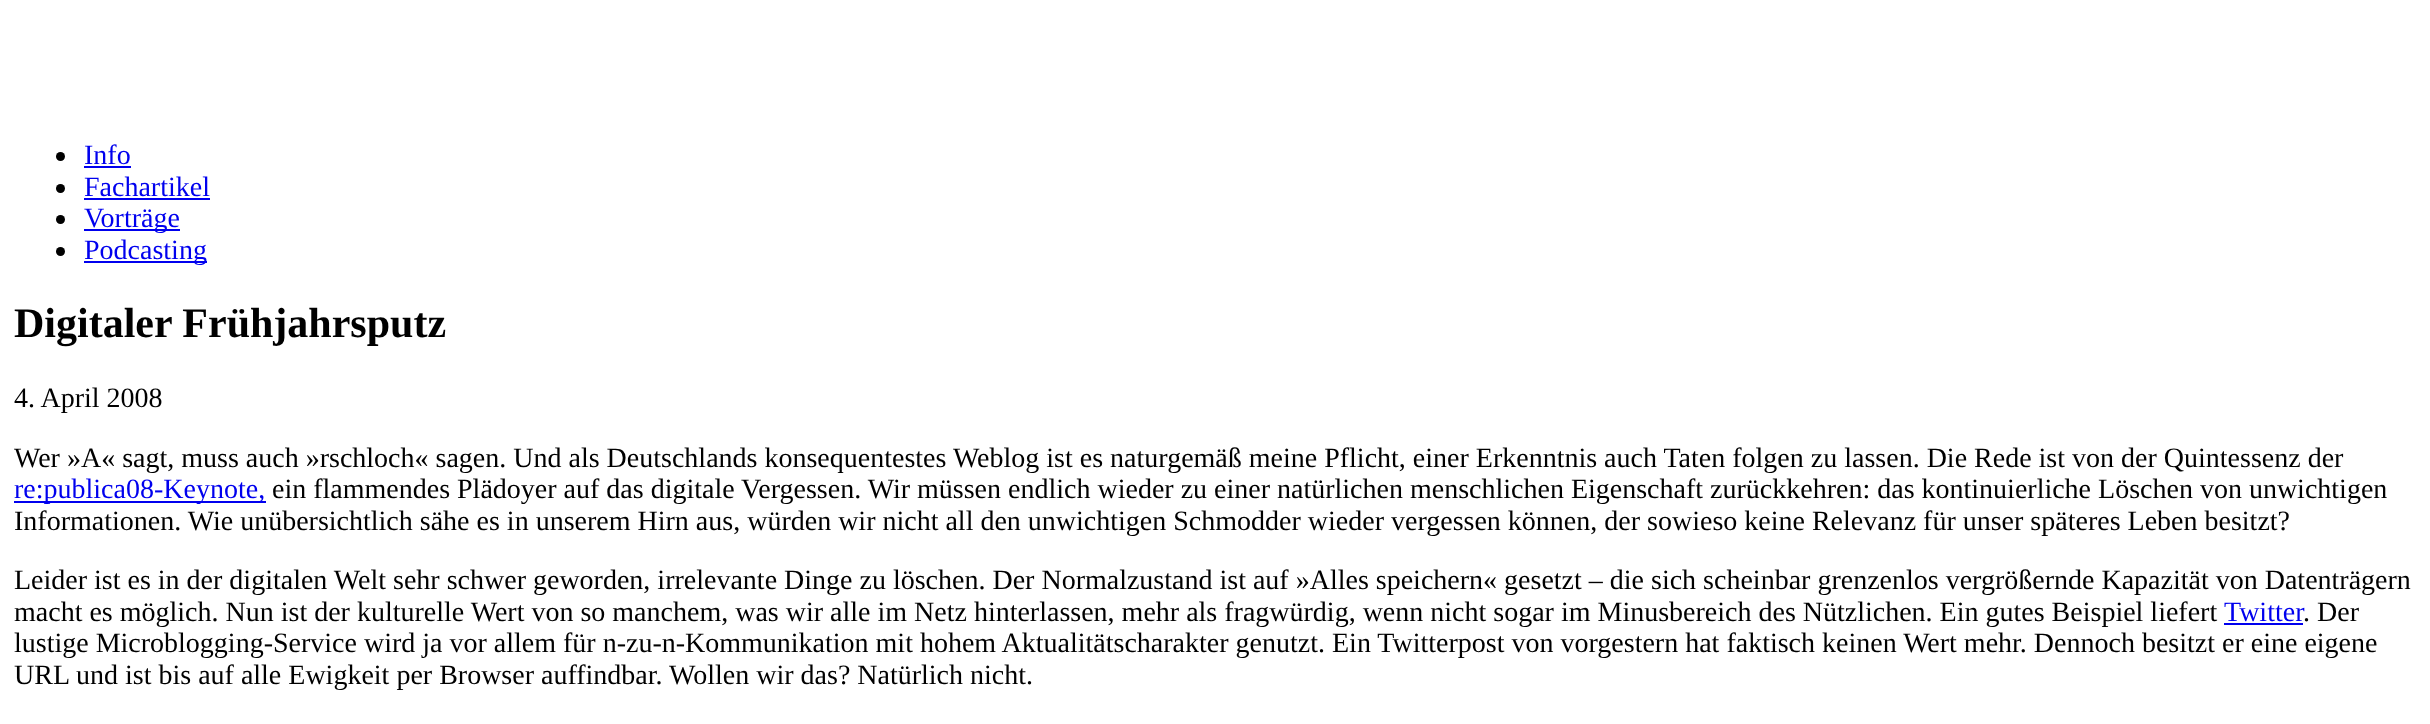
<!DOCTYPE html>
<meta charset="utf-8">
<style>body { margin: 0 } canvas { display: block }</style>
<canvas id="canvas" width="2430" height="724"></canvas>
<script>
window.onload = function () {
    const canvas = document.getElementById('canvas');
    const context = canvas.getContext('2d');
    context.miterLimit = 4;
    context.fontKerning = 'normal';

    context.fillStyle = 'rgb(255, 255, 255)';
    context.fillRect(0, 0, 2430, 724);
    context.fillStyle = 'rgb(0, 0, 0)';
    context.beginPath();
    context.arc(60.5, 156.5, 4.5, 0, 2 * Math.PI);
    context.fill();
    context.fillStyle = 'rgb(0, 0, 238)';
    context.fillRect(84, 166, 47, 2);
    context.fillStyle = 'rgb(0, 0, 0)';
    context.beginPath();
    context.arc(60.5, 188.5, 4.5, 0, 2 * Math.PI);
    context.fill();
    context.fillStyle = 'rgb(0, 0, 238)';
    context.fillRect(84, 198, 126, 2);
    context.fillStyle = 'rgb(0, 0, 0)';
    context.beginPath();
    context.arc(60.5, 219.5, 4.5, 0, 2 * Math.PI);
    context.fill();
    context.fillStyle = 'rgb(0, 0, 238)';
    context.fillRect(84, 229, 96, 2);
    context.fillStyle = 'rgb(0, 0, 0)';
    context.beginPath();
    context.arc(60.5, 251.5, 4.5, 0, 2 * Math.PI);
    context.fill();
    context.fillStyle = 'rgb(0, 0, 238)';
    context.fillRect(84, 261, 123, 2);
    context.fillRect(14, 501, 252, 2);
    context.fillRect(2224, 623, 79, 2);
    context.font = '28px Liberation Serif';
    context.fillText('Info', 84, 164);
    context.fillText('Fachartikel', 84, 196);
    context.fillText('Vorträge', 84, 227);
    context.fillText('Podcasting', 84, 259);
    context.font = 'bold 42px Liberation Serif';
    context.fillStyle = 'rgb(0, 0, 0)';
    context.fillText('Digitaler Frühjahrsputz', 14, 337);
    context.font = '28px Liberation Serif';
    context.fillText('4. April 2008', 14, 407);
    context.fillText('Wer »A« sagt, muss auch »rschloch« sagen. Und als Deutschlands konsequentestes Weblog ist es naturgemäß meine Pflicht, einer Erkenntnis auch Taten folgen zu lassen. Die Rede ist von der Quintessenz der', 14, 467);
    context.fillStyle = 'rgb(0, 0, 238)';
    context.fillText('re:publica08-Keynote,', 14, 498);
    context.fillStyle = 'rgb(0, 0, 0)';
    context.fillText('ein flammendes Plädoyer auf das digitale Vergessen. Wir müssen endlich wieder zu einer natürlichen menschlichen Eigenschaft zurückkehren: das kontinuierliche Löschen von unwichtigen', 272, 498);
    context.fillText('Informationen. Wie unübersichtlich sähe es in unserem Hirn aus, würden wir nicht all den unwichtigen Schmodder wieder vergessen können, der sowieso keine Relevanz für unser späteres Leben besitzt?', 14, 530);
    context.fillText('Leider ist es in der digitalen Welt sehr schwer geworden, irrelevante Dinge zu löschen. Der Normalzustand ist auf »Alles speichern« gesetzt – die sich scheinbar grenzenlos vergrößernde Kapazität von Datenträgern', 14, 589);
    context.fillText('macht es möglich. Nun ist der kulturelle Wert von so manchem, was wir alle im Netz hinterlassen, mehr als fragwürdig, wenn nicht sogar im Minusbereich des Nützlichen. Ein gutes Beispiel liefert', 14, 621);
    context.fillStyle = 'rgb(0, 0, 238)';
    context.fillText('Twitter', 2224, 621);
    context.fillStyle = 'rgb(0, 0, 0)';
    context.fillText('. Der', 2303, 621);
    context.fillText('lustige Microblogging-Service wird ja vor allem für n-zu-n-Kommunikation mit hohem Aktualitätscharakter genutzt. Ein Twitterpost von vorgestern hat faktisch keinen Wert mehr. Dennoch besitzt er eine eigene', 14, 652);
    context.fillText('URL', 14, 684);
    context.fillText('und ist bis auf alle Ewigkeit per Browser auffindbar. Wollen wir das? Natürlich nicht.', 76, 684);
};
</script>
